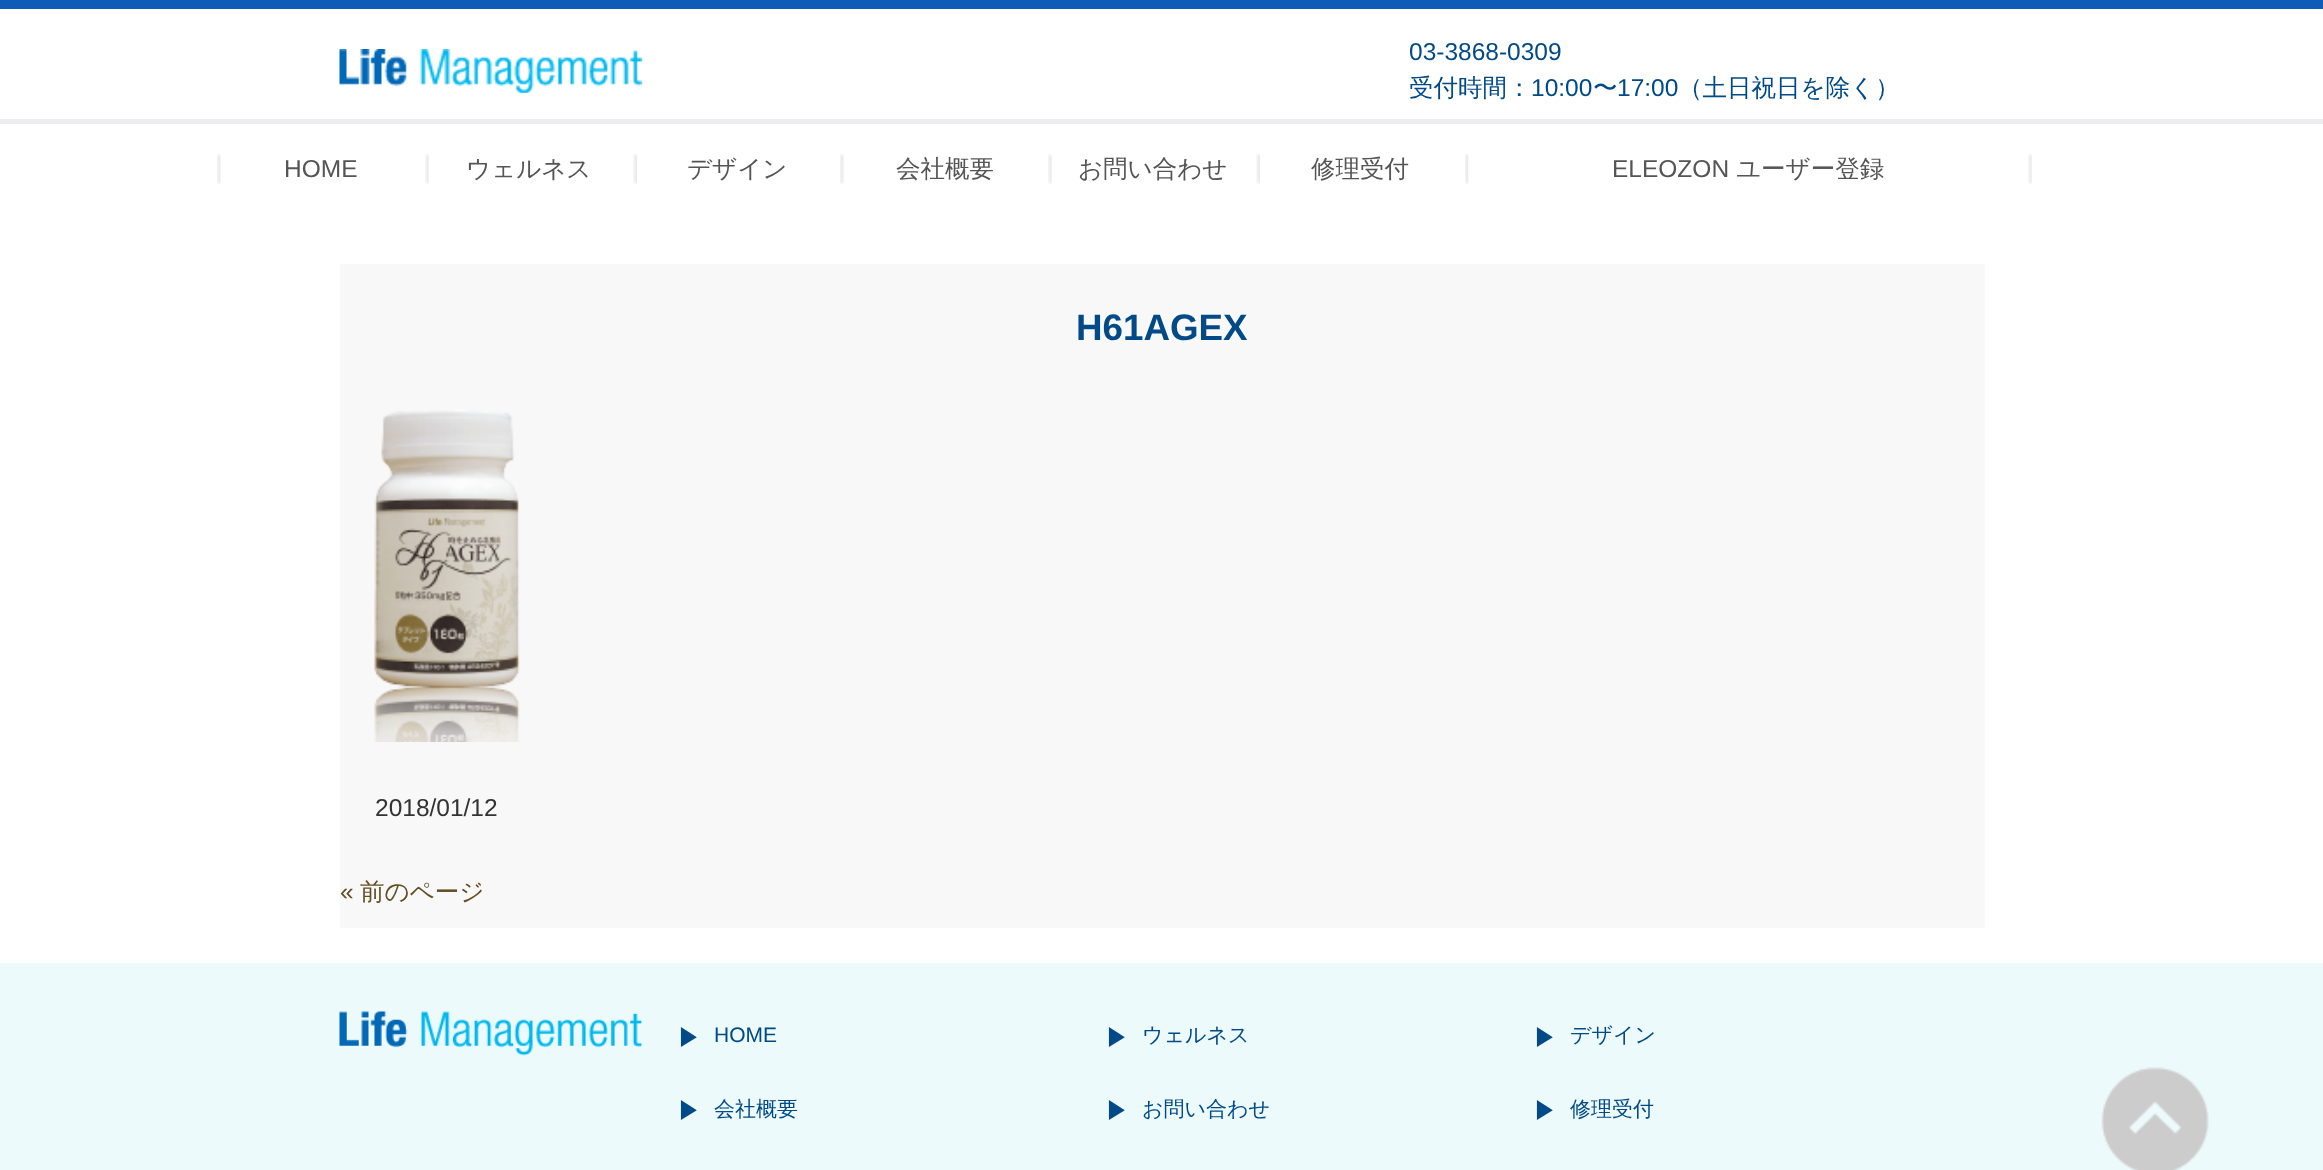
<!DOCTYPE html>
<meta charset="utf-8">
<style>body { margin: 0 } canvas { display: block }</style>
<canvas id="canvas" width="2323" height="1170"></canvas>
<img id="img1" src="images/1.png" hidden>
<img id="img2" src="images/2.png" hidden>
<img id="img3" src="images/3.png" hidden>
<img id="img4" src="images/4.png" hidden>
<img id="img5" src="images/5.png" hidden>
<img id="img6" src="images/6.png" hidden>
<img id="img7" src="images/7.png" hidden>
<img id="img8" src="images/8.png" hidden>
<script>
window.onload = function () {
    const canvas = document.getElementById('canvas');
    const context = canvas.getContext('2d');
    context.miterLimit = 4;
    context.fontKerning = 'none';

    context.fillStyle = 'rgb(255, 255, 255)';
    context.fillRect(0, 0, 2323, 1170);
    context.fillStyle = 'rgb(14, 92, 183)';
    context.fillRect(0, 0, 2323, 9);
    context.fillStyle = 'rgb(234, 238, 240)';
    context.fillRect(0, 119, 2323, 5);
    context.drawImage(document.getElementById('img1'), 339, 49, 304, 44);
    context.drawImage(document.getElementById('img2'), 217, 154, 4, 30);
    context.drawImage(document.getElementById('img3'), 425, 154, 4, 30);
    context.drawImage(document.getElementById('img4'), 633, 154, 4, 30);
    context.drawImage(document.getElementById('img2'), 840, 154, 4, 30);
    context.drawImage(document.getElementById('img3'), 1048, 154, 4, 30);
    context.drawImage(document.getElementById('img4'), 1256, 154, 4, 30);
    context.drawImage(document.getElementById('img5'), 1465, 154, 4, 30);
    context.drawImage(document.getElementById('img3'), 2028, 154, 4, 30);
    context.fillStyle = 'rgb(248, 248, 248)';
    context.fillRect(340, 264, 1645, 664);
    context.drawImage(document.getElementById('img6'), 374, 410, 146, 332);
    context.fillStyle = 'rgb(236, 250, 252)';
    context.fillRect(0, 963, 2323, 207);
    context.drawImage(document.getElementById('img7'), 339, 1011, 304, 45);
    context.drawImage(document.getElementById('img8'), 2101, 1067, 108, 103);
    context.font = '24.5px Liberation Sans';
    context.fillStyle = 'rgb(1, 74, 135)';
    context.fillText('03-3868-0309', 1409, 60);
    context.font = '500 24.5px WenQuanYi Zen Hei';
    context.fillText('受付時間：', 1409, 96);
    context.font = '24.5px Liberation Sans';
    context.fillText('10:00', 1531, 96);
    context.font = '500 24.5px WenQuanYi Zen Hei';
    context.fillText('〜', 1593, 96);
    context.font = '24.5px Liberation Sans';
    context.fillText('17:00', 1617, 96);
    context.font = '500 24.5px WenQuanYi Zen Hei';
    context.fillText('（土日祝日を除く）', 1678, 96);
    context.font = '24.5px Liberation Sans';
    context.fillStyle = 'rgb(85, 85, 85)';
    context.fillText('HOME', 284, 177);
    context.font = '500 24.5px WenQuanYi Zen Hei';
    context.fillText('ウェルネス', 466, 177);
    context.fillText('デザイン', 687, 177);
    context.fillText('会社概要', 896, 177);
    context.fillText('お問い合わせ', 1078, 177);
    context.fillText('修理受付', 1311, 177);
    context.font = '24.5px Liberation Sans';
    context.fillText('ELEOZON', 1612, 177);
    context.font = '500 24.5px WenQuanYi Zen Hei';
    context.fillText('ユーザー登録', 1736, 177);
    context.font = 'bold 36.75px Liberation Sans';
    context.fillStyle = 'rgb(1, 74, 135)';
    context.fillText('H61AGEX', 1076, 340);
    context.font = '24.5px Liberation Sans';
    context.fillStyle = 'rgb(51, 51, 51)';
    context.fillText('2018/01/12', 375, 816);
    context.fillStyle = 'rgb(98, 78, 36)';
    context.fillText('«', 340, 900);
    context.font = '500 24.5px WenQuanYi Zen Hei';
    context.fillText('前のページ', 360, 900);
    context.fillStyle = 'rgb(1, 74, 135)';
    context.fillText('▶︎', 677, 1046);
    context.font = '21px Liberation Sans';
    context.fillText('HOME', 714, 1042);
    context.font = '500 24.5px WenQuanYi Zen Hei';
    context.fillText('▶︎', 1105, 1046);
    context.font = '500 21px WenQuanYi Zen Hei';
    context.fillText('ウェルネス', 1142, 1042);
    context.font = '500 24.5px WenQuanYi Zen Hei';
    context.fillText('▶︎', 1533, 1046);
    context.font = '500 21px WenQuanYi Zen Hei';
    context.fillText('デザイン', 1570, 1042);
    context.font = '500 24.5px WenQuanYi Zen Hei';
    context.fillText('▶︎', 677, 1119);
    context.font = '500 21px WenQuanYi Zen Hei';
    context.fillText('会社概要', 714, 1116);
    context.font = '500 24.5px WenQuanYi Zen Hei';
    context.fillText('▶︎', 1105, 1119);
    context.font = '500 21px WenQuanYi Zen Hei';
    context.fillText('お問い合わせ', 1142, 1116);
    context.font = '500 24.5px WenQuanYi Zen Hei';
    context.fillText('▶︎', 1533, 1119);
    context.font = '500 21px WenQuanYi Zen Hei';
    context.fillText('修理受付', 1570, 1116);
};
</script>
